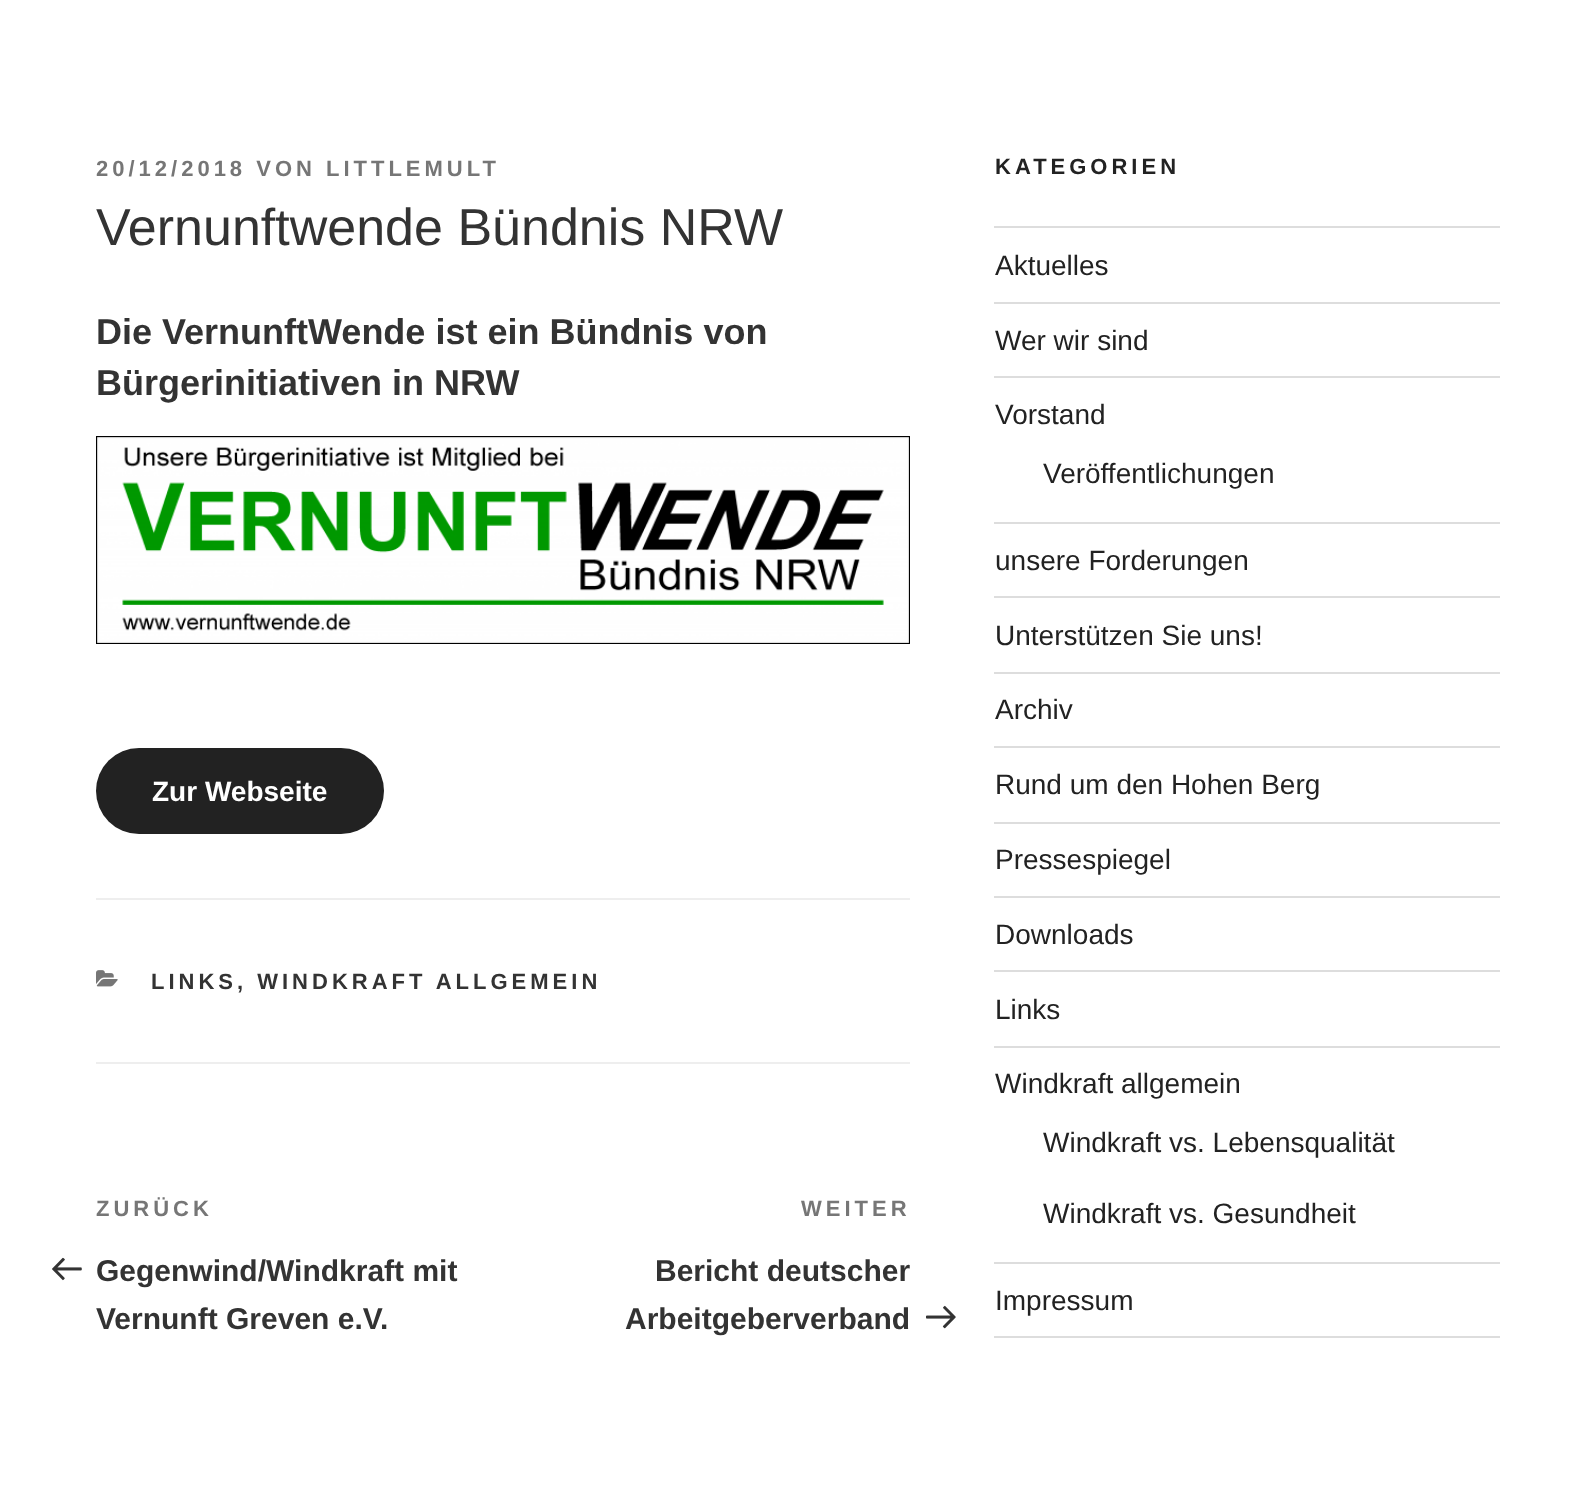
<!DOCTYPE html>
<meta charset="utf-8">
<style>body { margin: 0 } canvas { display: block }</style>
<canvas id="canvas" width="1596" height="1489"></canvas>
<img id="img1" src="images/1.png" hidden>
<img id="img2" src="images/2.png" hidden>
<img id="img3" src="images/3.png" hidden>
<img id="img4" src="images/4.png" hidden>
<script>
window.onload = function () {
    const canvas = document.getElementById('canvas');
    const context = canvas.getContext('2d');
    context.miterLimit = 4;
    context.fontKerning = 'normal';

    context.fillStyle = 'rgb(255, 255, 255)';
    context.fillRect(0, 0, 1596, 1489);
    context.drawImage(document.getElementById('img1'), 96, 436, 814, 208);
    context.fillStyle = 'rgb(34, 34, 34)';
    context.beginPath();
    context.roundRect(96, 748, 288, 86, 43);
    context.fill();
    context.fillStyle = 'rgb(238, 238, 238)';
    context.fillRect(96, 898, 814, 2);
    context.fillRect(96, 1062, 814, 2);
    context.drawImage(document.getElementById('img2'), 96, 970, 22, 17);
    context.drawImage(document.getElementById('img3'), 52, 1257, 30, 24);
    context.drawImage(document.getElementById('img4'), 926, 1305, 30, 24);
    context.fillStyle = 'rgb(221, 221, 221)';
    context.fillRect(994, 226, 506, 2);
    context.fillRect(994, 302, 506, 2);
    context.fillRect(994, 376, 506, 2);
    context.fillRect(994, 522, 506, 2);
    context.fillRect(994, 596, 506, 2);
    context.fillRect(994, 672, 506, 2);
    context.fillRect(994, 746, 506, 2);
    context.fillRect(994, 822, 506, 2);
    context.fillRect(994, 896, 506, 2);
    context.fillRect(994, 970, 506, 2);
    context.fillRect(994, 1046, 506, 2);
    context.fillRect(994, 1262, 506, 2);
    context.fillRect(994, 1336, 506, 2);
    context.letterSpacing = '4px';
    context.font = 'bold 22px Liberation Sans';
    context.fillStyle = 'rgb(118, 118, 118)';
    context.fillText('20/12/2018 VON LITTLEMULT', 96, 176);
    context.letterSpacing = '0px';
    context.font = '52px Liberation Sans';
    context.fillStyle = 'rgb(51, 51, 51)';
    context.fillText('Vernunftwende Bündnis NRW', 96, 245);
    context.font = 'bold 36px Liberation Sans';
    context.fillText('Die VernunftWende ist ein Bündnis von', 96, 344);
    context.fillText('Bürgerinitiativen in NRW', 96, 395);
    context.font = 'bold 28px Liberation Sans';
    context.fillStyle = 'rgb(255, 255, 255)';
    context.fillText('Zur Webseite', 152, 801);
    context.letterSpacing = '4px';
    context.font = 'bold 22px Liberation Sans';
    context.fillStyle = 'rgb(51, 51, 51)';
    context.fillText('LINKS, WINDKRAFT ALLGEMEIN', 151, 989);
    context.fillStyle = 'rgb(118, 118, 118)';
    context.fillText('ZURÜCK', 96, 1216);
    context.letterSpacing = '0px';
    context.font = 'bold 30px Liberation Sans';
    context.fillStyle = 'rgb(51, 51, 51)';
    context.fillText('Gegenwind/Windkraft mit', 96, 1281);
    context.fillText('Vernunft Greven e.V.', 96, 1329);
    context.letterSpacing = '4px';
    context.font = 'bold 22px Liberation Sans';
    context.fillStyle = 'rgb(118, 118, 118)';
    context.fillText('WEITER', 801, 1216);
    context.letterSpacing = '0px';
    context.font = 'bold 30px Liberation Sans';
    context.fillStyle = 'rgb(51, 51, 51)';
    context.fillText('Bericht deutscher', 655, 1281);
    context.fillText('Arbeitgeberverband', 625, 1329);
    context.letterSpacing = '4px';
    context.font = 'bold 22px Liberation Sans';
    context.fillStyle = 'rgb(34, 34, 34)';
    context.fillText('KATEGORIEN', 995, 174);
    context.letterSpacing = '0px';
    context.font = '28px Liberation Sans';
    context.fillText('Aktuelles', 995, 275);
    context.fillText('Wer wir sind', 995, 350);
    context.fillText('Vorstand', 995, 424);
    context.fillText('Veröffentlichungen', 1043, 483);
    context.fillText('unsere Forderungen', 995, 570);
    context.fillText('Unterstützen Sie uns!', 995, 645);
    context.fillText('Archiv', 995, 719);
    context.fillText('Rund um den Hohen Berg', 995, 794);
    context.fillText('Pressespiegel', 995, 869);
    context.fillText('Downloads', 995, 944);
    context.fillText('Links', 995, 1019);
    context.fillText('Windkraft allgemein', 995, 1093);
    context.fillText('Windkraft vs. Lebensqualität', 1043, 1152);
    context.fillText('Windkraft vs. Gesundheit', 1043, 1223);
    context.fillText('Impressum', 995, 1310);
};
</script>
